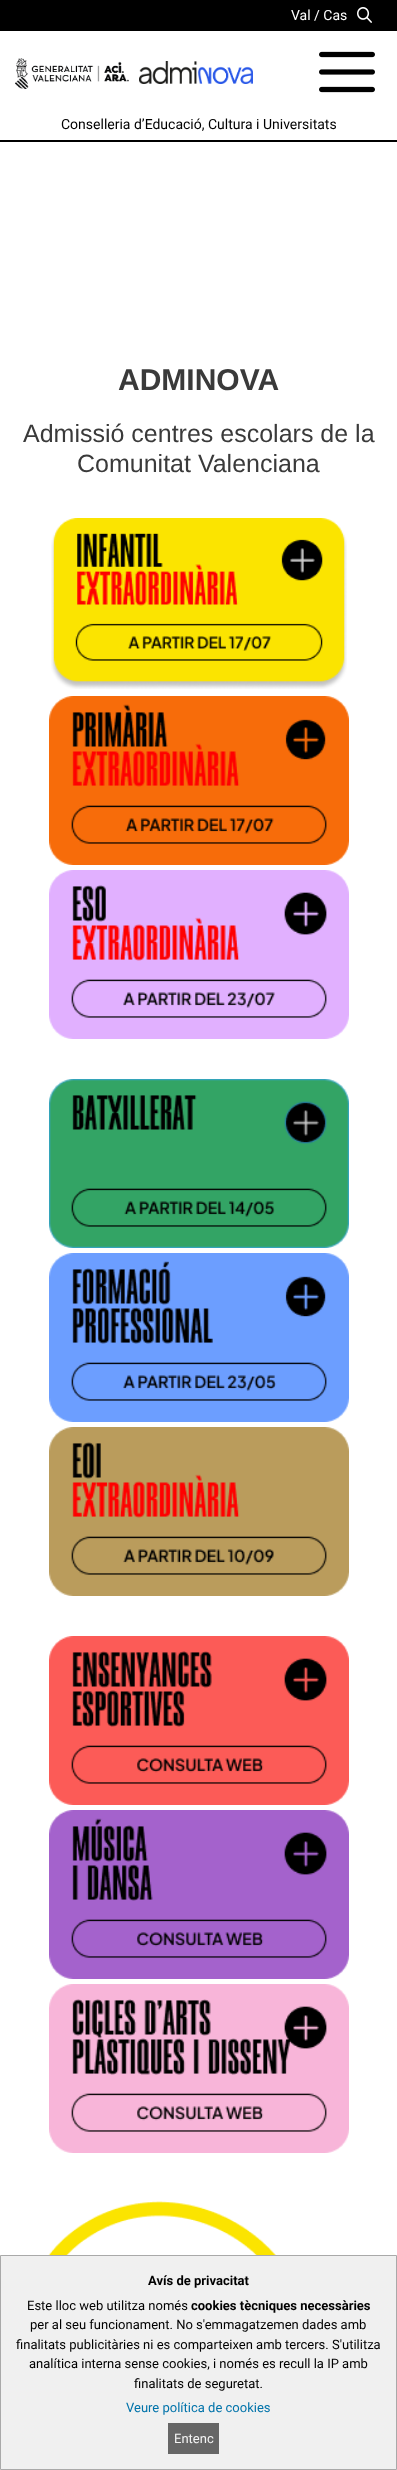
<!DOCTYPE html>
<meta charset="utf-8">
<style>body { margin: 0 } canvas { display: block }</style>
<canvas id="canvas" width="397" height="2470"></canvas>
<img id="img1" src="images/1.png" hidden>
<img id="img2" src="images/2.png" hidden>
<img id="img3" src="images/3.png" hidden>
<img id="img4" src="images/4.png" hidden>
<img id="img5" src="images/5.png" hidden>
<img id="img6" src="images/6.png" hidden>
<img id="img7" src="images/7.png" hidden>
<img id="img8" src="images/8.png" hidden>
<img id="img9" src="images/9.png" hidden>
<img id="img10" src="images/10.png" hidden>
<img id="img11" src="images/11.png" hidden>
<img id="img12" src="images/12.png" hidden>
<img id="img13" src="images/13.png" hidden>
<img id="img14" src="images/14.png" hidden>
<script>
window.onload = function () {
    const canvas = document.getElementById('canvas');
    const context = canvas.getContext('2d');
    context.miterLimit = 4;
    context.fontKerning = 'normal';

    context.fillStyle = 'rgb(255, 255, 255)';
    context.fillRect(0, 0, 397, 2470);
    context.fillStyle = 'rgb(0, 0, 0)';
    context.fillRect(0, 140, 397, 2);
    context.fillRect(0, 0, 397, 31);
    context.drawImage(document.getElementById('img1'), 357, 7, 15, 16);
    context.drawImage(document.getElementById('img2'), 15, 58, 114, 31);
    context.drawImage(document.getElementById('img3'), 139, 61, 114, 23);
    context.drawImage(document.getElementById('img4'), 319, 51, 56, 42);
    context.drawImage(document.getElementById('img5'), 51, 518, 296, 171);
    context.drawImage(document.getElementById('img6'), 49, 696, 300, 169);
    context.drawImage(document.getElementById('img7'), 49, 870, 300, 169);
    context.drawImage(document.getElementById('img8'), 49, 1079, 300, 169);
    context.drawImage(document.getElementById('img9'), 49, 1253, 300, 169);
    context.drawImage(document.getElementById('img10'), 49, 1427, 300, 169);
    context.drawImage(document.getElementById('img11'), 49, 1636, 300, 169);
    context.drawImage(document.getElementById('img12'), 49, 1810, 300, 169);
    context.drawImage(document.getElementById('img13'), 49, 1984, 300, 169);
    context.drawImage(document.getElementById('img14'), 0, 2201, 397, 54);
    context.fillStyle = 'rgb(240, 240, 240)';
    context.beginPath();
    context.rect(0.5, 2255.5, 396, 214);
    context.fill();
    context.strokeStyle = 'rgb(169, 169, 169)';
    context.stroke();
    context.fillStyle = 'rgb(102, 102, 102)';
    context.fillRect(168, 2423, 51, 31);
    context.font = '14px Roboto';
    context.fillStyle = 'rgb(255, 255, 255)';
    context.fillText('Val / Cas', 291, 20);
    context.fillStyle = 'rgb(0, 0, 0)';
    context.fillText('Conselleria d’Educació, Cultura i Universitats', 61, 129);
    context.font = 'bold 30px Liberation Sans';
    context.fillStyle = 'rgb(58, 58, 58)';
    context.fillText('ADMINOVA', 118, 390);
    context.font = '25px Liberation Sans';
    context.fillText('Admissió centres escolars de la', 23, 442);
    context.fillText('Comunitat Valenciana', 77, 472);
    context.font = 'bold 13px Roboto';
    context.fillStyle = 'rgb(0, 0, 0)';
    context.fillText('Avís de privacitat', 148, 2285);
    context.font = '13px Roboto';
    context.fillText('Este lloc web utilitza només', 27, 2310);
    context.font = 'bold 13px Roboto';
    context.fillText('cookies tècniques necessàries', 191, 2310);
    context.font = '13px Roboto';
    context.fillText('per al seu funcionament. No s\'emmagatzemen dades amb', 30, 2329);
    context.fillText('finalitats publicitàries ni es comparteixen amb tercers. S\'utilitza', 16, 2349);
    context.fillText('analítica interna sense cookies, i només es recull la IP amb', 29, 2368);
    context.fillText('finalitats de seguretat.', 134, 2388);
    context.fillStyle = 'rgb(0, 115, 170)';
    context.fillText('Veure política de cookies', 126, 2412);
    context.fillStyle = 'rgb(245, 245, 245)';
    context.fillText('Entenc', 174, 2443);
};
</script>
